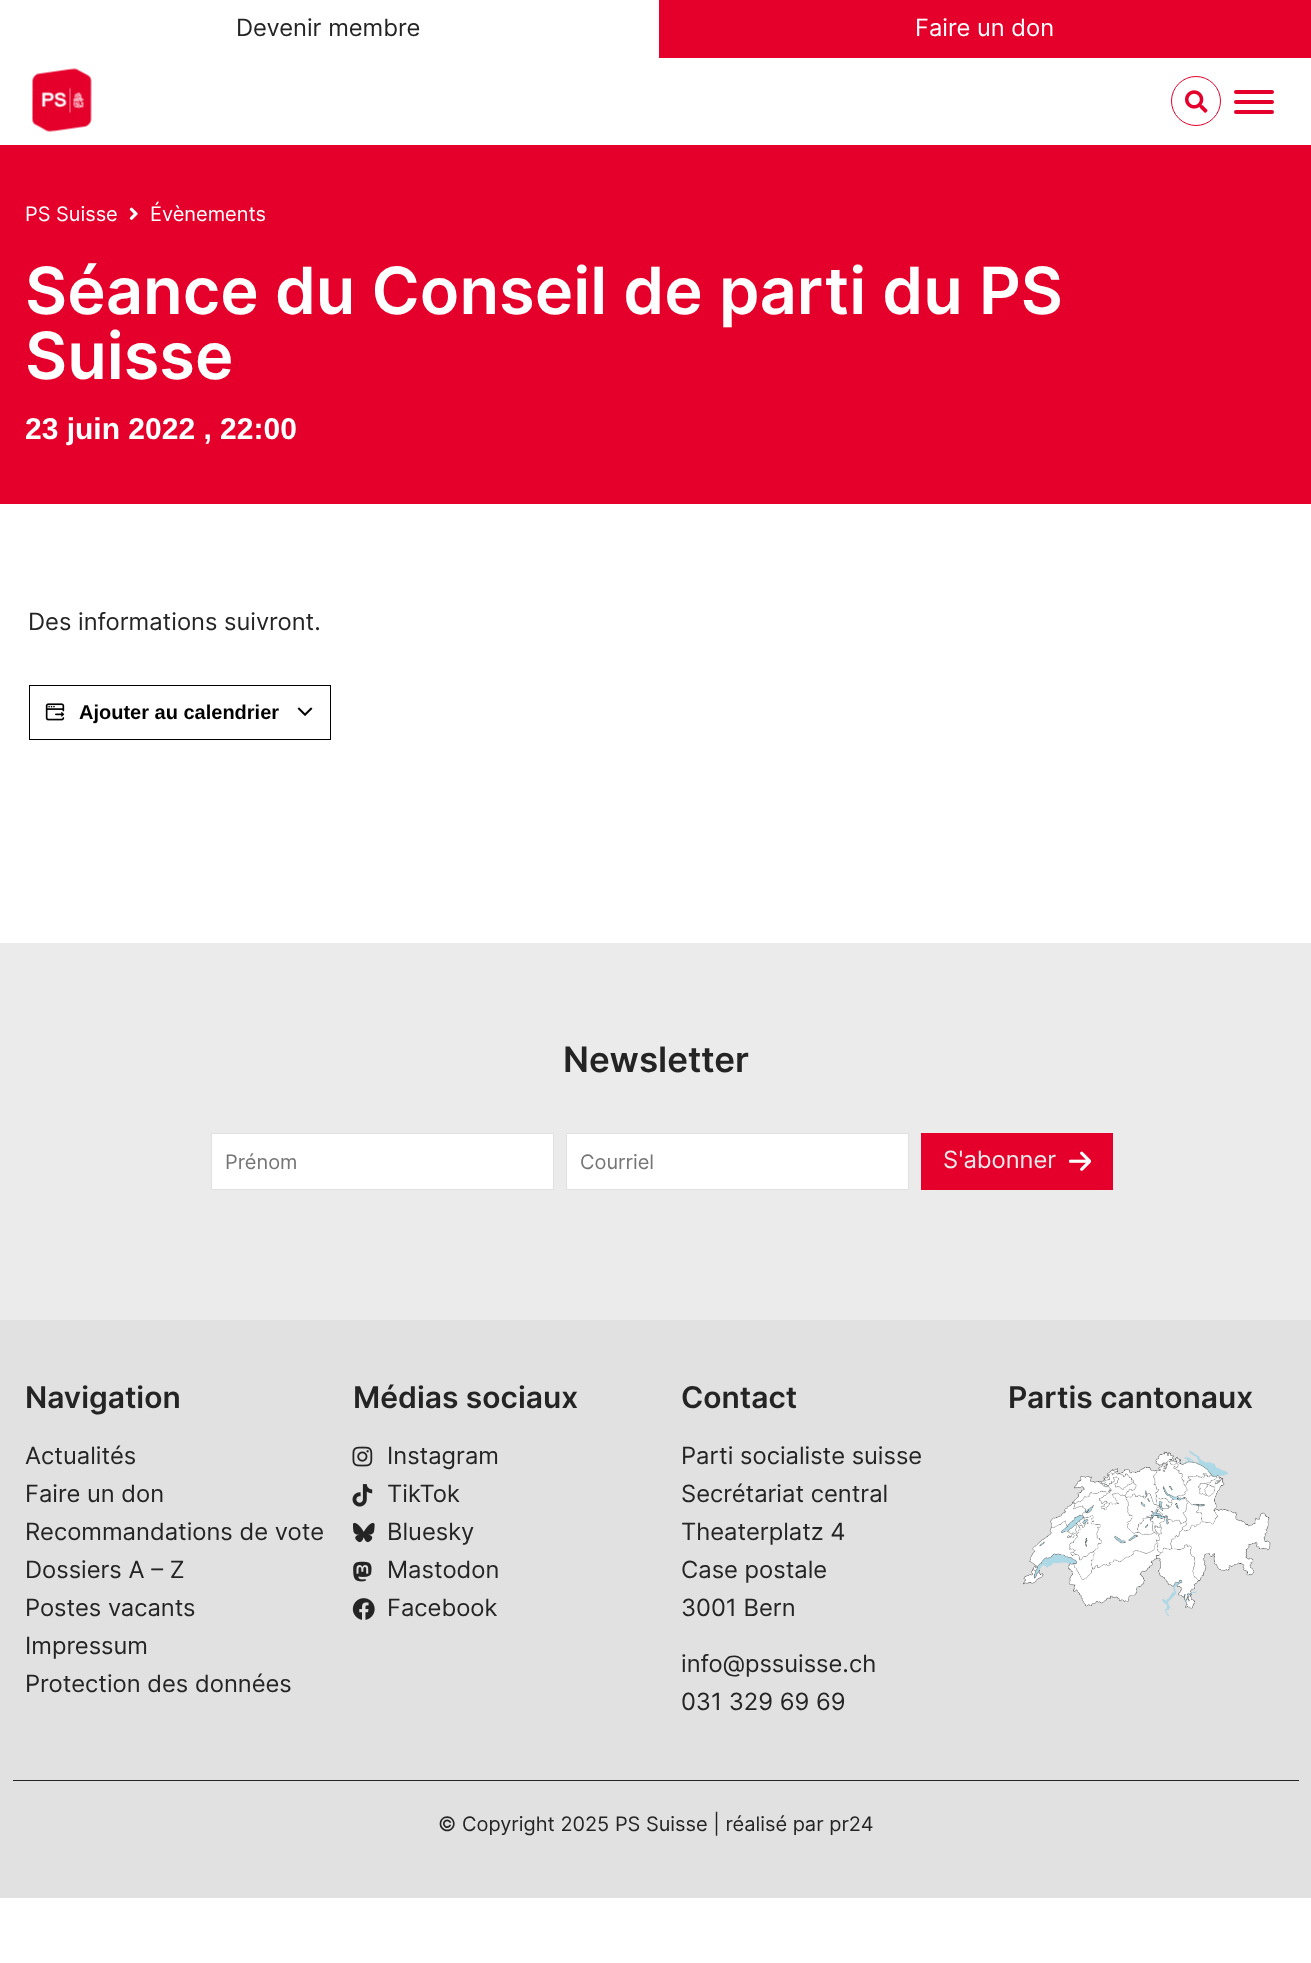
<!DOCTYPE html>
<meta charset="utf-8">
<style>body { margin: 0 } canvas { display: block }</style>
<canvas id="canvas" width="1311" height="1963"></canvas>
<img id="img1" src="images/1.png" hidden>
<img id="img2" src="images/2.png" hidden>
<img id="img3" src="images/3.png" hidden>
<img id="img4" src="images/4.png" hidden>
<img id="img5" src="images/5.png" hidden>
<img id="img6" src="images/6.png" hidden>
<img id="img7" src="images/7.png" hidden>
<img id="img8" src="images/8.png" hidden>
<img id="img9" src="images/9.png" hidden>
<img id="img10" src="images/10.png" hidden>
<img id="img11" src="images/11.png" hidden>
<img id="img12" src="images/12.png" hidden>
<script>
window.onload = function () {
    const canvas = document.getElementById('canvas');
    const context = canvas.getContext('2d');
    context.miterLimit = 4;
    context.fontKerning = 'normal';

    context.fillStyle = 'rgb(255, 255, 255)';
    context.fillRect(0, 0, 1311, 1963);
    context.fillStyle = 'rgb(228, 0, 43)';
    context.fillRect(659, 0, 652, 58);
    context.drawImage(document.getElementById('img1'), 32, 68, 60, 64);
    context.beginPath();
    context.arc(1196, 101, 24.5, 0, 2 * Math.PI);
    context.strokeStyle = 'rgb(228, 0, 43)';
    context.stroke();
    context.drawImage(document.getElementById('img2'), 1185, 90, 23, 23);
    context.beginPath();
    context.roundRect(1234, 90, 40, 4, 2);
    context.fill();
    context.beginPath();
    context.roundRect(1234, 100, 40, 4, 2);
    context.fill();
    context.beginPath();
    context.roundRect(1234, 110, 40, 4, 2);
    context.fill();
    context.fillRect(0, 145, 1311, 359);
    context.drawImage(document.getElementById('img3'), 129, 207, 9, 13);
    context.strokeStyle = 'rgb(0, 0, 0)';
    context.strokeRect(29.5, 685.5, 301, 54);
    context.drawImage(document.getElementById('img4'), 45, 703, 20, 18);
    context.drawImage(document.getElementById('img5'), 297, 707, 16, 9);
    context.fillStyle = 'rgb(235, 235, 235)';
    context.fillRect(0, 943, 1311, 377);
    context.fillStyle = 'rgb(255, 255, 255)';
    context.beginPath();
    context.rect(211.5, 1133.5, 342, 56);
    context.fill();
    context.strokeStyle = 'rgb(225, 225, 225)';
    context.stroke();
    context.beginPath();
    context.rect(566.5, 1133.5, 342, 56);
    context.fill();
    context.stroke();
    context.fillStyle = 'rgb(228, 0, 43)';
    context.fillRect(921, 1133, 192, 57);
    context.drawImage(document.getElementById('img6'), 1069, 1151, 22, 20);
    context.fillStyle = 'rgb(225, 225, 225)';
    context.fillRect(0, 1320, 1311, 578);
    context.drawImage(document.getElementById('img7'), 352, 1446, 21, 21);
    context.drawImage(document.getElementById('img8'), 352, 1484, 21, 23);
    context.drawImage(document.getElementById('img9'), 353, 1522, 22, 21);
    context.drawImage(document.getElementById('img10'), 353, 1561, 19, 21);
    context.drawImage(document.getElementById('img11'), 352, 1598, 23, 22);
    context.drawImage(document.getElementById('img12'), 1023, 1450, 248, 166);
    context.fillStyle = 'rgb(36, 36, 36)';
    context.fillRect(13, 1780, 1286, 1);
    context.font = '23.75px Inter';
    context.fillText('Devenir membre', 236, 36);
    context.fillStyle = 'rgb(255, 255, 255)';
    context.fillText('Faire un don', 915, 36);
    context.font = '20px Inter';
    context.fillText('PS Suisse', 25, 221);
    context.fillText('Évènements', 150, 221);
    context.font = '600 65px Inter';
    context.fillText('Séance du Conseil de parti du PS', 25, 314);
    context.fillText('Suisse', 25, 379);
    context.font = 'bold 30px Liberation Sans';
    context.fillText('23 juin 2022 , 22:00', 25, 439);
    context.font = '23.75px Inter';
    context.fillStyle = 'rgb(36, 36, 36)';
    context.fillText('Des informations suivront.', 28, 630);
    context.font = 'bold 20px Liberation Sans';
    context.fillStyle = 'rgb(0, 0, 0)';
    context.fillText('Ajouter au calendrier', 79, 719);
    context.font = '600 35px Inter';
    context.fillStyle = 'rgb(36, 36, 36)';
    context.fillText('Newsletter', 563, 1072);
    context.font = '20px Inter';
    context.fillStyle = 'rgb(117, 117, 117)';
    context.fillText('Prénom', 225, 1169);
    context.fillText('Courriel', 580, 1169);
    context.font = '23.75px Inter';
    context.fillStyle = 'rgb(235, 235, 235)';
    context.fillText('S\'abonner', 943, 1168);
    context.font = '600 30px Inter';
    context.fillStyle = 'rgb(36, 36, 36)';
    context.fillText('Navigation', 25, 1408);
    context.font = '23.75px Inter';
    context.fillText('Actualités', 25, 1464);
    context.fillText('Faire un don', 25, 1502);
    context.fillText('Recommandations de vote', 25, 1540);
    context.fillText('Dossiers A – Z', 25, 1578);
    context.fillText('Postes vacants', 25, 1616);
    context.fillText('Impressum', 25, 1654);
    context.fillText('Protection des données', 25, 1692);
    context.font = '600 30px Inter';
    context.fillText('Médias sociaux', 353, 1408);
    context.font = '23.75px Inter';
    context.fillText('Instagram', 387, 1464);
    context.fillText('TikTok', 387, 1502);
    context.fillText('Bluesky', 387, 1540);
    context.fillText('Mastodon', 387, 1578);
    context.fillText('Facebook', 387, 1616);
    context.font = '600 30px Inter';
    context.fillText('Contact', 681, 1408);
    context.font = '23.75px Inter';
    context.fillText('Parti socialiste suisse', 681, 1464);
    context.fillText('Secrétariat central', 681, 1502);
    context.fillText('Theaterplatz 4', 681, 1540);
    context.fillText('Case postale', 681, 1578);
    context.fillText('3001 Bern', 681, 1616);
    context.fillText('info@pssuisse.ch', 681, 1672);
    context.fillText('031 329 69 69', 681, 1710);
    context.font = '600 30px Inter';
    context.fillText('Partis cantonaux', 1008, 1408);
    context.font = '20px Inter';
    context.fillText('© Copyright 2025 PS Suisse | réalisé par pr24', 438, 1831);
};
</script>
